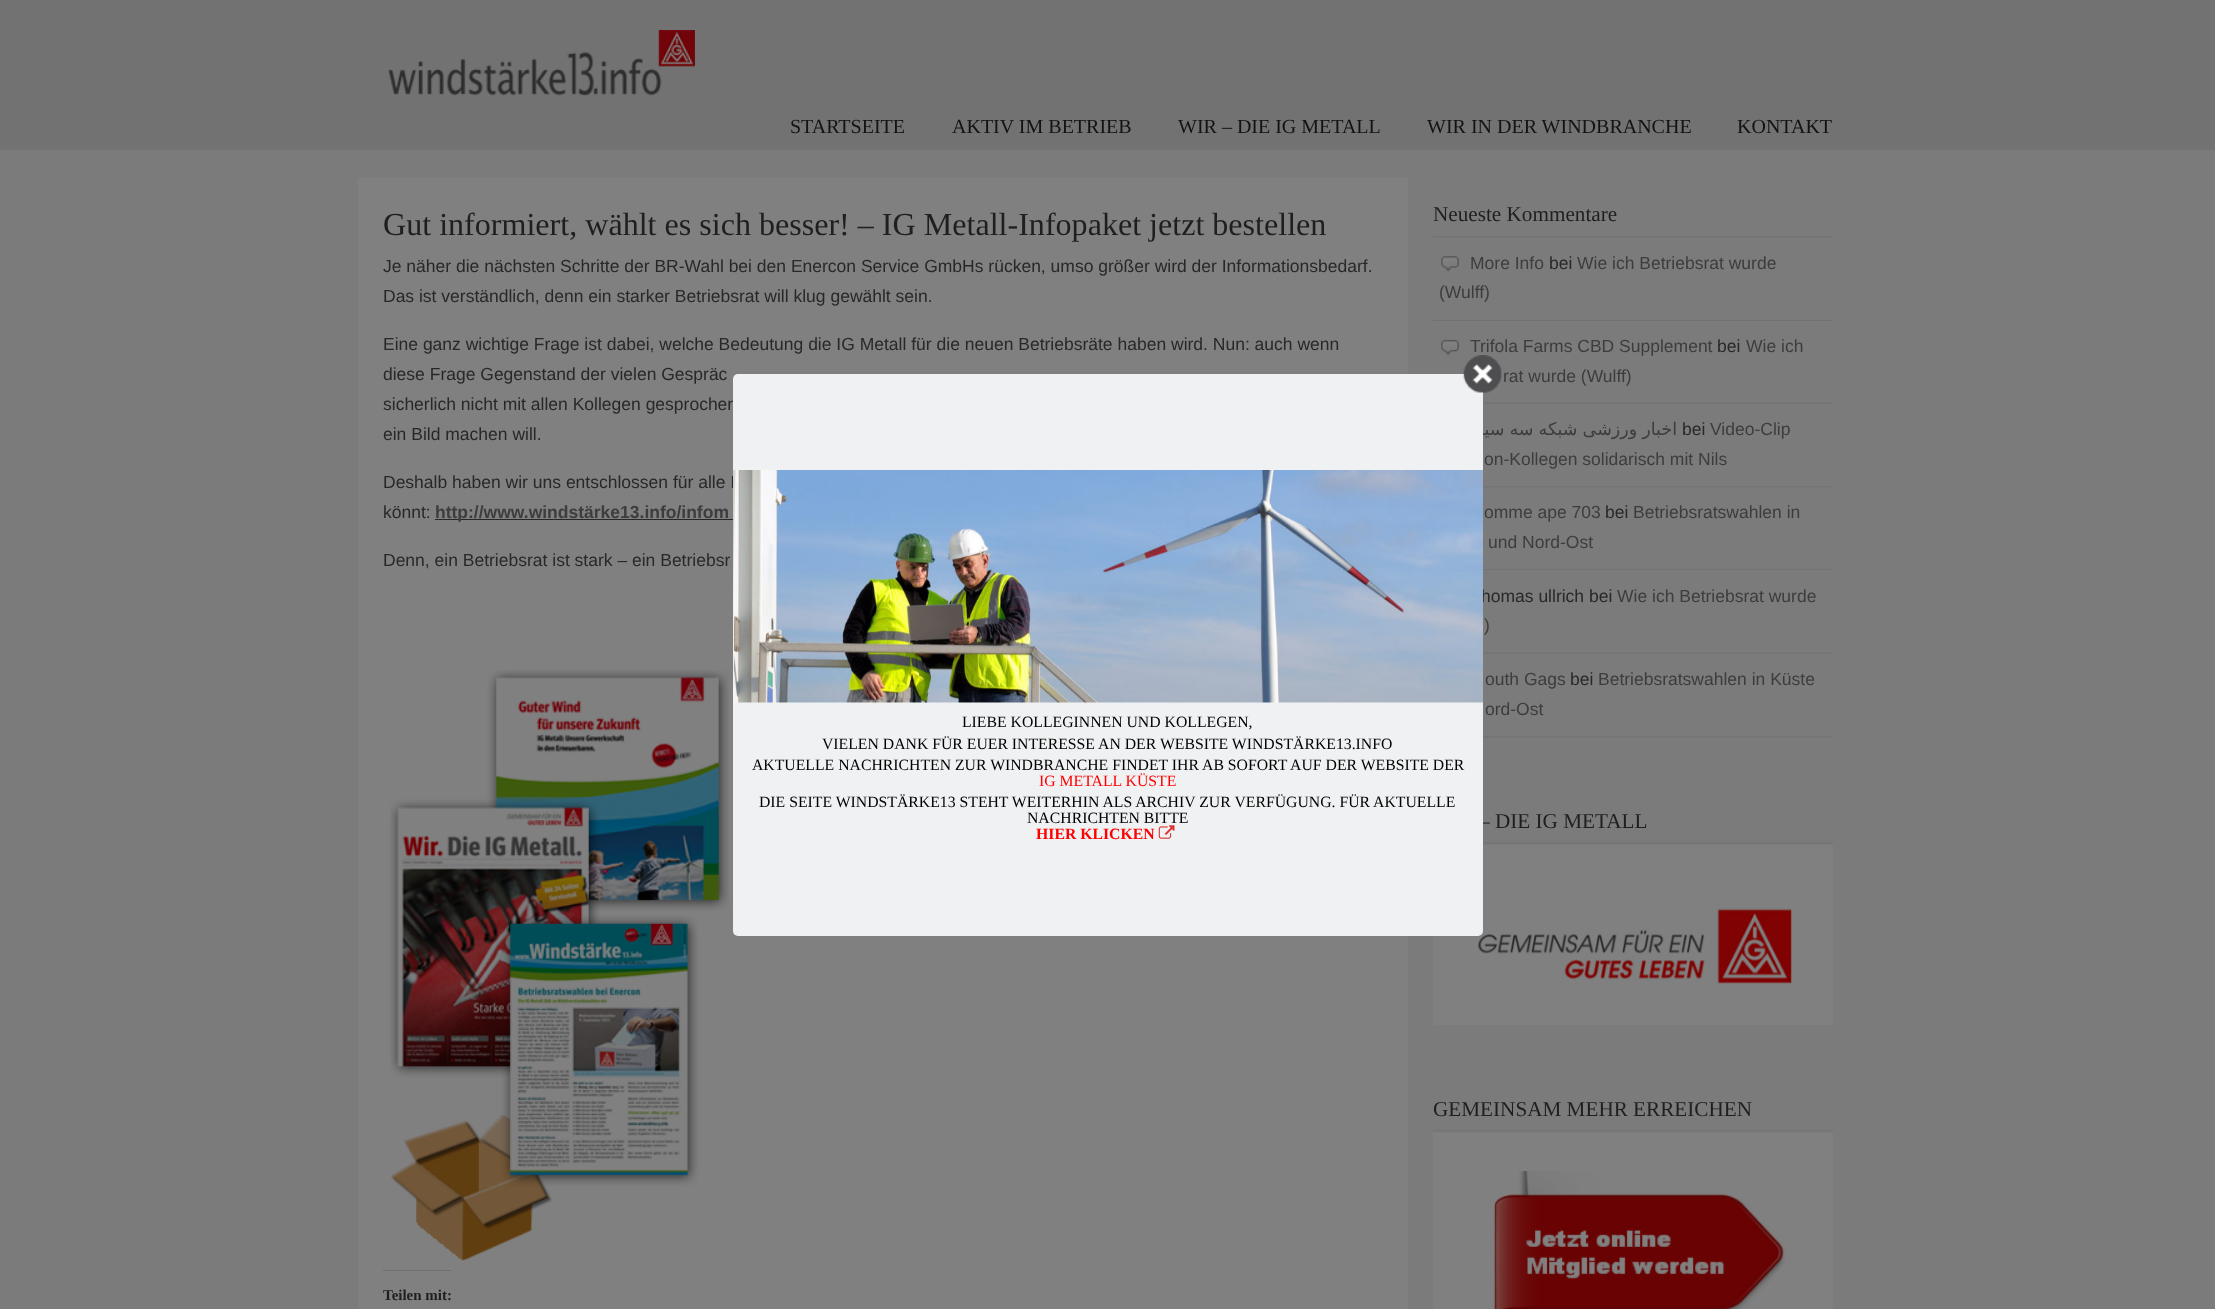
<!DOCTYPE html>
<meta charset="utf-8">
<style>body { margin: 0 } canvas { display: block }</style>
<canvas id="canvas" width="2215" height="1309"></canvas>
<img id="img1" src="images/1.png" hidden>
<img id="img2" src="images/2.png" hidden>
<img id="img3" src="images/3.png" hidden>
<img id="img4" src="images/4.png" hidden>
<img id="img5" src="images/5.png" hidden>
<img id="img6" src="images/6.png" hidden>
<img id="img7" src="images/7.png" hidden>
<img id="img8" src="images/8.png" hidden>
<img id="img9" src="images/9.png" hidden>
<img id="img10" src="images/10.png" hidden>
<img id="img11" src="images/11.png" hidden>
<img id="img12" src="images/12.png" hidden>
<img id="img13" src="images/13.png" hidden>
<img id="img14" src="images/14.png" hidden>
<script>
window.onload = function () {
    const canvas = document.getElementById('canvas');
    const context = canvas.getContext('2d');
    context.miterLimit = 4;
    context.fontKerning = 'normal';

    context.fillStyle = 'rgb(123, 123, 123)';
    context.fillRect(0, 0, 2215, 1309);
    context.fillStyle = 'rgb(114, 114, 114)';
    context.fillRect(0, 0, 2215, 147);
    context.drawImage(document.getElementById('img1'), 388, 30, 307, 66);
    context.fillStyle = 'rgb(115, 115, 115)';
    context.fillRect(0, 147, 2215, 3);
    context.fillStyle = 'rgb(128, 128, 128)';
    context.fillRect(358, 178, 1050, 1131);
    context.fillStyle = 'rgb(40, 40, 40)';
    context.fillRect(435, 519, 298, 1);
    context.drawImage(document.getElementById('img2'), 390, 670, 339, 591);
    context.fillStyle = 'rgb(111, 111, 111)';
    context.fillRect(383, 1270, 68, 1);
    context.drawImage(document.getElementById('img3'), 1432, 236, 401, 2);
    context.drawImage(document.getElementById('img4'), 1432, 320, 401, 1);
    context.drawImage(document.getElementById('img5'), 1441, 256, 18, 16);
    context.drawImage(document.getElementById('img6'), 1483, 402, 350, 2);
    context.drawImage(document.getElementById('img7'), 1441, 339, 18, 17);
    context.drawImage(document.getElementById('img8'), 1483, 486, 350, 2);
    context.drawImage(document.getElementById('img9'), 1483, 569, 350, 1);
    context.drawImage(document.getElementById('img6'), 1483, 652, 350, 2);
    context.drawImage(document.getElementById('img8'), 1483, 736, 350, 2);
    context.drawImage(document.getElementById('img6'), 1483, 842, 350, 2);
    context.fillStyle = 'rgb(128, 128, 128)';
    context.fillRect(1433, 845, 400, 180);
    context.drawImage(document.getElementById('img10'), 1477, 908, 315, 76);
    context.drawImage(document.getElementById('img4'), 1432, 1130, 401, 1);
    context.fillRect(1433, 1133, 400, 176);
    context.drawImage(document.getElementById('img11'), 1493, 1171, 293, 138);
    context.font = '20px Liberation Serif';
    context.fillStyle = 'rgb(19, 19, 19)';
    context.fillText('STARTSEITE', 790, 133);
    context.fillText('AKTIV IM BETRIEB', 952, 133);
    context.fillText('WIR – DIE IG METALL', 1178, 133);
    context.fillText('WIR IN DER WINDBRANCHE', 1427, 133);
    context.fillText('KONTAKT', 1737, 133);
    context.font = '32.1px Liberation Serif';
    context.fillStyle = 'rgb(31, 31, 31)';
    context.fillText('Gut informiert, wählt es sich besser! – IG Metall-Infopaket jetzt bestellen', 383, 235);
    context.font = '17.5px Liberation Sans';
    context.fillStyle = 'rgb(40, 40, 40)';
    context.fillText('Je näher die nächsten Schritte der BR-Wahl bei den Enercon Service GmbHs rücken, umso größer wird der Informationsbedarf.', 383, 272);
    context.fillText('Das ist verständlich, denn ein starker Betriebsrat will klug gewählt sein.', 383, 302);
    context.fillText('Eine ganz wichtige Frage ist dabei, welche Bedeutung die IG Metall für die neuen Betriebsräte haben wird. Nun: auch wenn', 383, 350);
    context.fillText('diese Frage Gegenstand der vielen Gespräc', 383, 380);
    context.fillText('sicherlich nicht mit allen Kollegen gesprochen', 383, 410);
    context.fillText('ein Bild machen will.', 383, 440);
    context.fillText('Deshalb haben wir uns entschlossen für alle I', 383, 488);
    context.fillText('könnt:', 383, 518);
    context.font = 'bold 17.5px Liberation Sans';
    context.fillStyle = 'rgb(61, 61, 61)';
    context.fillText('http://www.windstärke13.info/infom', 435, 518);
    context.font = '17.5px Liberation Sans';
    context.fillStyle = 'rgb(40, 40, 40)';
    context.fillText('Denn, ein Betriebsrat ist stark – ein Betriebsr', 383, 566);
    context.font = 'bold 15px Liberation Serif';
    context.fillStyle = 'rgb(31, 31, 31)';
    context.fillText('Teilen mit:', 383, 1300);
    context.font = '21.2px Liberation Serif';
    context.fillText('Neueste Kommentare', 1433, 221);
    context.font = '17.5px Liberation Sans';
    context.fillStyle = 'rgb(61, 61, 61)';
    context.fillText('More Info', 1470, 269);
    context.fillStyle = 'rgb(40, 40, 40)';
    context.fillText('bei', 1549, 269);
    context.fillStyle = 'rgb(61, 61, 61)';
    context.fillText('Wie ich Betriebsrat wurde', 1577, 269);
    context.fillText('(Wulff)', 1439, 298);
    context.fillText('Trifola Farms CBD Supplement', 1470, 352);
    context.fillStyle = 'rgb(40, 40, 40)';
    context.fillText('bei', 1717, 352);
    context.fillStyle = 'rgb(61, 61, 61)';
    context.fillText('Wie ich', 1746, 352);
    context.fillText('rat wurde (Wulff)', 1503, 382);
    context.wordSpacing = '-0.5px';
    context.direction = 'rtl';
    context.font = '17.5px DejaVu Sans';
    context.fillText('اخبار ورزشی شبکه سه سیما', 1677, 435);
    context.wordSpacing = '0px';
    context.direction = 'ltr';
    context.font = '17.5px Liberation Sans';
    context.fillStyle = 'rgb(40, 40, 40)';
    context.fillText('bei', 1682, 435);
    context.fillStyle = 'rgb(61, 61, 61)';
    context.fillText('Video-Clip', 1710, 435);
    context.fillText('on-Kollegen solidarisch mit Nils', 1484, 465);
    context.fillText('omme ape 703', 1484, 518);
    context.fillStyle = 'rgb(40, 40, 40)';
    context.fillText('bei', 1605, 518);
    context.fillStyle = 'rgb(61, 61, 61)';
    context.fillText('Betriebsratswahlen in', 1633, 518);
    context.fillText('und Nord-Ost', 1488, 548);
    context.fillStyle = 'rgb(40, 40, 40)';
    context.fillText('homas ullrich bei', 1481, 602);
    context.fillStyle = 'rgb(61, 61, 61)';
    context.fillText('Wie ich Betriebsrat wurde', 1617, 602);
    context.fillText(')', 1484, 631);
    context.fillText('outh Gags', 1485, 685);
    context.fillStyle = 'rgb(40, 40, 40)';
    context.fillText('bei', 1570, 685);
    context.fillStyle = 'rgb(61, 61, 61)';
    context.fillText('Betriebsratswahlen in Küste', 1598, 685);
    context.fillText('ord-Ost', 1485, 715);
    context.font = '21.2px Liberation Serif';
    context.fillStyle = 'rgb(31, 31, 31)';
    context.fillText('– DIE IG METALL', 1479, 828);
    context.fillText('GEMEINSAM MEHR ERREICHEN', 1433, 1116);
    context.fillStyle = 'rgb(240, 241, 242)';
    context.beginPath();
    context.roundRect(733, 374, 750, 562, 5);
    context.fill();
    context.drawImage(document.getElementById('img12'), 1463, 355, 39, 38);
    context.drawImage(document.getElementById('img13'), 733, 470, 750, 233);
    context.font = '15.75px Liberation Serif';
    context.fillStyle = 'rgb(0, 0, 0)';
    context.fillText('LIEBE KOLLEGINNEN UND KOLLEGEN,', 962, 727);
    context.fillText('VIELEN DANK FÜR EUER INTERESSE AN DER WEBSITE WINDSTÄRKE13.INFO', 822, 749);
    context.fillText('AKTUELLE NACHRICHTEN ZUR WINDBRANCHE FINDET IHR AB SOFORT AUF DER WEBSITE DER', 752, 770);
    context.fillStyle = 'rgb(255, 0, 0)';
    context.fillText('IG METALL KÜSTE', 1039, 786);
    context.fillStyle = 'rgb(0, 0, 0)';
    context.fillText('DIE SEITE WINDSTÄRKE13 STEHT WEITERHIN ALS ARCHIV ZUR VERFÜGUNG. FÜR AKTUELLE', 759, 807);
    context.fillText('NACHRICHTEN BITTE', 1027, 823);
    context.font = 'bold 15.75px Liberation Serif';
    context.fillStyle = 'rgb(255, 0, 0)';
    context.fillText('HIER KLICKEN', 1036, 839);
    context.drawImage(document.getElementById('img14'), 1158, 825, 17, 14);
};
</script>
